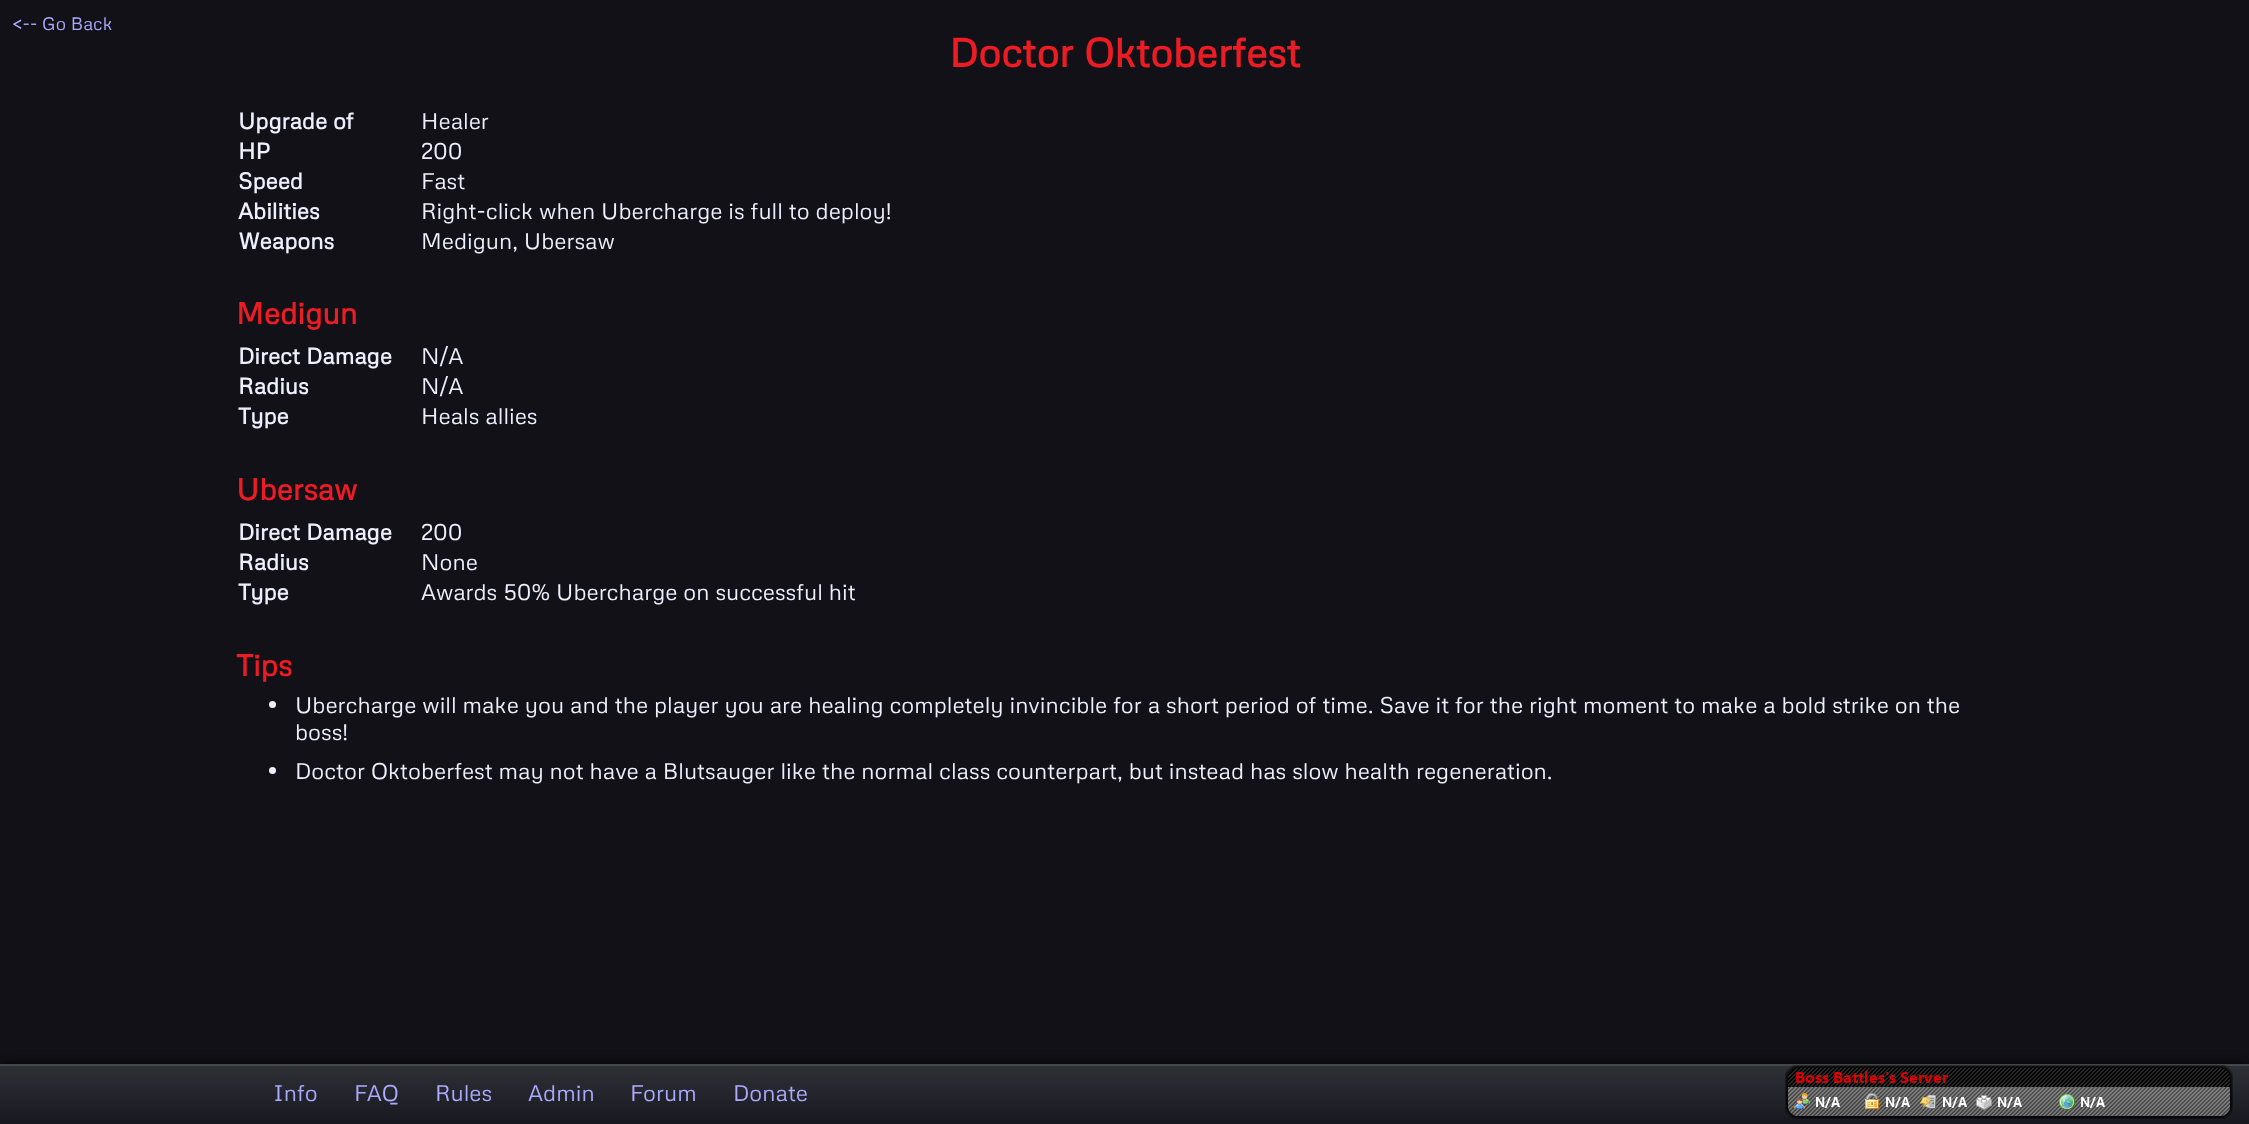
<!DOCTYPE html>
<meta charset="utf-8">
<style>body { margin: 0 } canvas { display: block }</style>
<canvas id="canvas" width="2249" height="1124"></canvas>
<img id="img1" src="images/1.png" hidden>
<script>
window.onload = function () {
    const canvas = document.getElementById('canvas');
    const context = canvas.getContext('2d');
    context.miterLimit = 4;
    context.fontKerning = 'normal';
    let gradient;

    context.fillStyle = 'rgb(17, 17, 23)';
    context.fillRect(0, 0, 2249, 1124);
    context.fillStyle = 'rgb(238, 238, 255)';
    context.beginPath();
    context.arc(272.5, 704.5, 3.5, 0, 2 * Math.PI);
    context.fill();
    context.beginPath();
    context.arc(272.5, 770.5, 3.5, 0, 2 * Math.PI);
    context.fill();
    context.fillStyle = 'rgb(0, 0, 0)';
    context.filter = 'blur(6px)';
    context.beginPath();
    context.rect(0, 1064, 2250, 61);
    context.fill();
    context.filter = 'none';
    gradient = context.createLinearGradient(1125, 1065, 1125, 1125);
    gradient.addColorStop(0, 'rgb(48, 48, 55)');
    gradient.addColorStop(1, 'rgb(23, 23, 31)');
    context.fillStyle = gradient;
    context.fillRect(0, 1066, 2249, 58);
    context.fillStyle = 'rgb(69, 69, 76)';
    context.fillRect(0, 1064, 2249, 2);
    context.drawImage(document.getElementById('img1'), 1785, 1065, 448, 54);
    context.font = '18px Metrophobic';
    context.fillStyle = 'rgb(170, 170, 255)';
    context.fillText('<-- Go Back', 12, 30);
    context.font = 'bold 40px Metrophobic';
    context.fillStyle = 'rgb(237, 28, 36)';
    context.fillText('Doctor Oktoberfest', 949, 67);
    context.font = 'bold 22.5px Metrophobic';
    context.fillStyle = 'rgb(238, 238, 255)';
    context.fillText('Upgrade of', 238, 129);
    context.font = '22.5px Metrophobic';
    context.fillText('Healer', 421, 129);
    context.font = 'bold 22.5px Metrophobic';
    context.fillText('HP', 238, 159);
    context.font = '22.5px Metrophobic';
    context.fillText('200', 421, 159);
    context.font = 'bold 22.5px Metrophobic';
    context.fillText('Speed', 238, 189);
    context.font = '22.5px Metrophobic';
    context.fillText('Fast', 421, 189);
    context.font = 'bold 22.5px Metrophobic';
    context.fillText('Abilities', 238, 219);
    context.font = '22.5px Metrophobic';
    context.fillText('Right-click when Ubercharge is full to deploy!', 421, 219);
    context.font = 'bold 22.5px Metrophobic';
    context.fillText('Weapons', 238, 249);
    context.font = '22.5px Metrophobic';
    context.fillText('Medigun, Ubersaw', 421, 249);
    context.font = 'bold 30px Metrophobic';
    context.fillStyle = 'rgb(237, 28, 36)';
    context.fillText('Medigun', 236, 324);
    context.font = 'bold 22.5px Metrophobic';
    context.fillStyle = 'rgb(238, 238, 255)';
    context.fillText('Direct Damage', 238, 364);
    context.font = '22.5px Metrophobic';
    context.fillText('N/A', 421, 364);
    context.font = 'bold 22.5px Metrophobic';
    context.fillText('Radius', 238, 394);
    context.font = '22.5px Metrophobic';
    context.fillText('N/A', 421, 394);
    context.font = 'bold 22.5px Metrophobic';
    context.fillText('Type', 238, 424);
    context.font = '22.5px Metrophobic';
    context.fillText('Heals allies', 421, 424);
    context.font = 'bold 30px Metrophobic';
    context.fillStyle = 'rgb(237, 28, 36)';
    context.fillText('Ubersaw', 236, 500);
    context.font = 'bold 22.5px Metrophobic';
    context.fillStyle = 'rgb(238, 238, 255)';
    context.fillText('Direct Damage', 238, 540);
    context.font = '22.5px Metrophobic';
    context.fillText('200', 421, 540);
    context.font = 'bold 22.5px Metrophobic';
    context.fillText('Radius', 238, 570);
    context.font = '22.5px Metrophobic';
    context.fillText('None', 421, 570);
    context.font = 'bold 22.5px Metrophobic';
    context.fillText('Type', 238, 600);
    context.font = '22.5px Metrophobic';
    context.fillText('Awards 50% Ubercharge on successful hit', 421, 600);
    context.font = 'bold 30px Metrophobic';
    context.fillStyle = 'rgb(237, 28, 36)';
    context.fillText('Tips', 236, 676);
    context.font = '22.5px Metrophobic';
    context.fillStyle = 'rgb(238, 238, 255)';
    context.fillText('Ubercharge will make you and the player you are healing completely invincible for a short period of time. Save it for the right moment to make a bold strike on the', 295, 713);
    context.fillText('boss!', 295, 740);
    context.fillText('Doctor Oktoberfest may not have a Blutsauger like the normal class counterpart, but instead has slow health regeneration.', 295, 779);
    context.fillStyle = 'rgb(170, 170, 255)';
    context.fillText('Info', 273, 1101);
    context.fillText('FAQ', 354, 1101);
    context.fillText('Rules', 435, 1101);
    context.fillText('Admin', 528, 1101);
    context.fillText('Forum', 630, 1101);
    context.fillText('Donate', 733, 1101);
};
</script>
